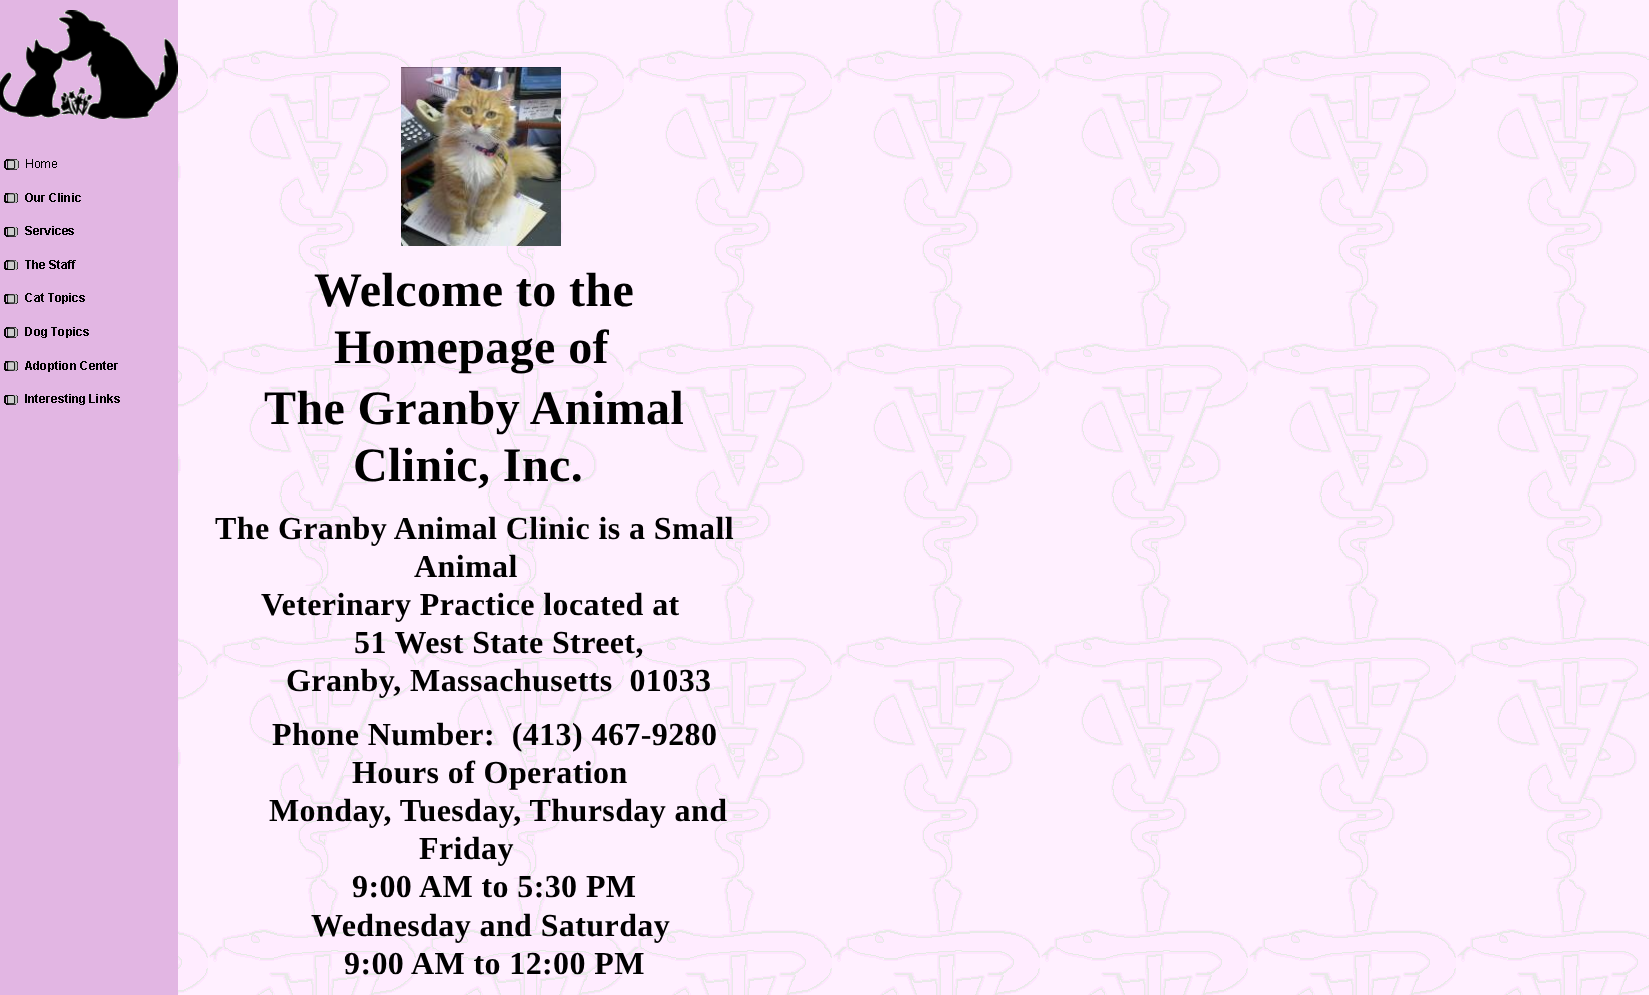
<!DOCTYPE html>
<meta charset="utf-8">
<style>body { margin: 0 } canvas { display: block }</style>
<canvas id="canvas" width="1649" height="995"></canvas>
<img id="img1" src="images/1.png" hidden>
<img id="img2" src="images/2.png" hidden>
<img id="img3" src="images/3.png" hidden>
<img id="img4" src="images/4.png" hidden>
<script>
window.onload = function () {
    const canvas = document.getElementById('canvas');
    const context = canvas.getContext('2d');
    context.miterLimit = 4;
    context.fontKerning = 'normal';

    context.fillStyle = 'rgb(255, 255, 255)';
    context.fillRect(0, 0, 1649, 995);
    context.drawImage(document.getElementById('img1'), 178, 0, 1471, 995);
    context.fillStyle = 'rgb(226, 182, 227)';
    context.fillRect(0, 0, 178, 995);
    context.drawImage(document.getElementById('img2'), 0, 10, 178, 109);
    context.drawImage(document.getElementById('img3'), 401, 67, 160, 179);
    context.drawImage(document.getElementById('img4'), 4, 159, 116, 246);
    context.letterSpacing = '0.4px';
    context.font = 'bold 48px Liberation Serif';
    context.fillStyle = 'rgb(0, 0, 0)';
    context.fillText('Welcome to the', 314, 306);
    context.fillText('Homepage of', 334, 363);
    context.fillText('The Granby Animal', 264, 424);
    context.fillText('Clinic, Inc.', 353, 481);
    context.font = 'bold 32px Liberation Serif';
    context.fillText('The Granby Animal Clinic is a Small', 215, 539);
    context.fillText('Animal', 414, 577);
    context.fillText('Veterinary Practice located at', 261, 615);
    context.fillText('51 West State Street,', 354, 653);
    context.fillText('Granby, Massachusetts  01033', 286, 691);
    context.fillText('Phone Number:  (413) 467-9280', 272, 745);
    context.fillText('Hours of Operation', 352, 783);
    context.fillText('Monday, Tuesday, Thursday and', 269, 821);
    context.fillText('Friday', 419, 859);
    context.fillText('9:00 AM to 5:30 PM', 352, 897);
    context.fillText('Wednesday and Saturday', 311, 936);
    context.fillText('9:00 AM to 12:00 PM', 344, 974);
};
</script>
